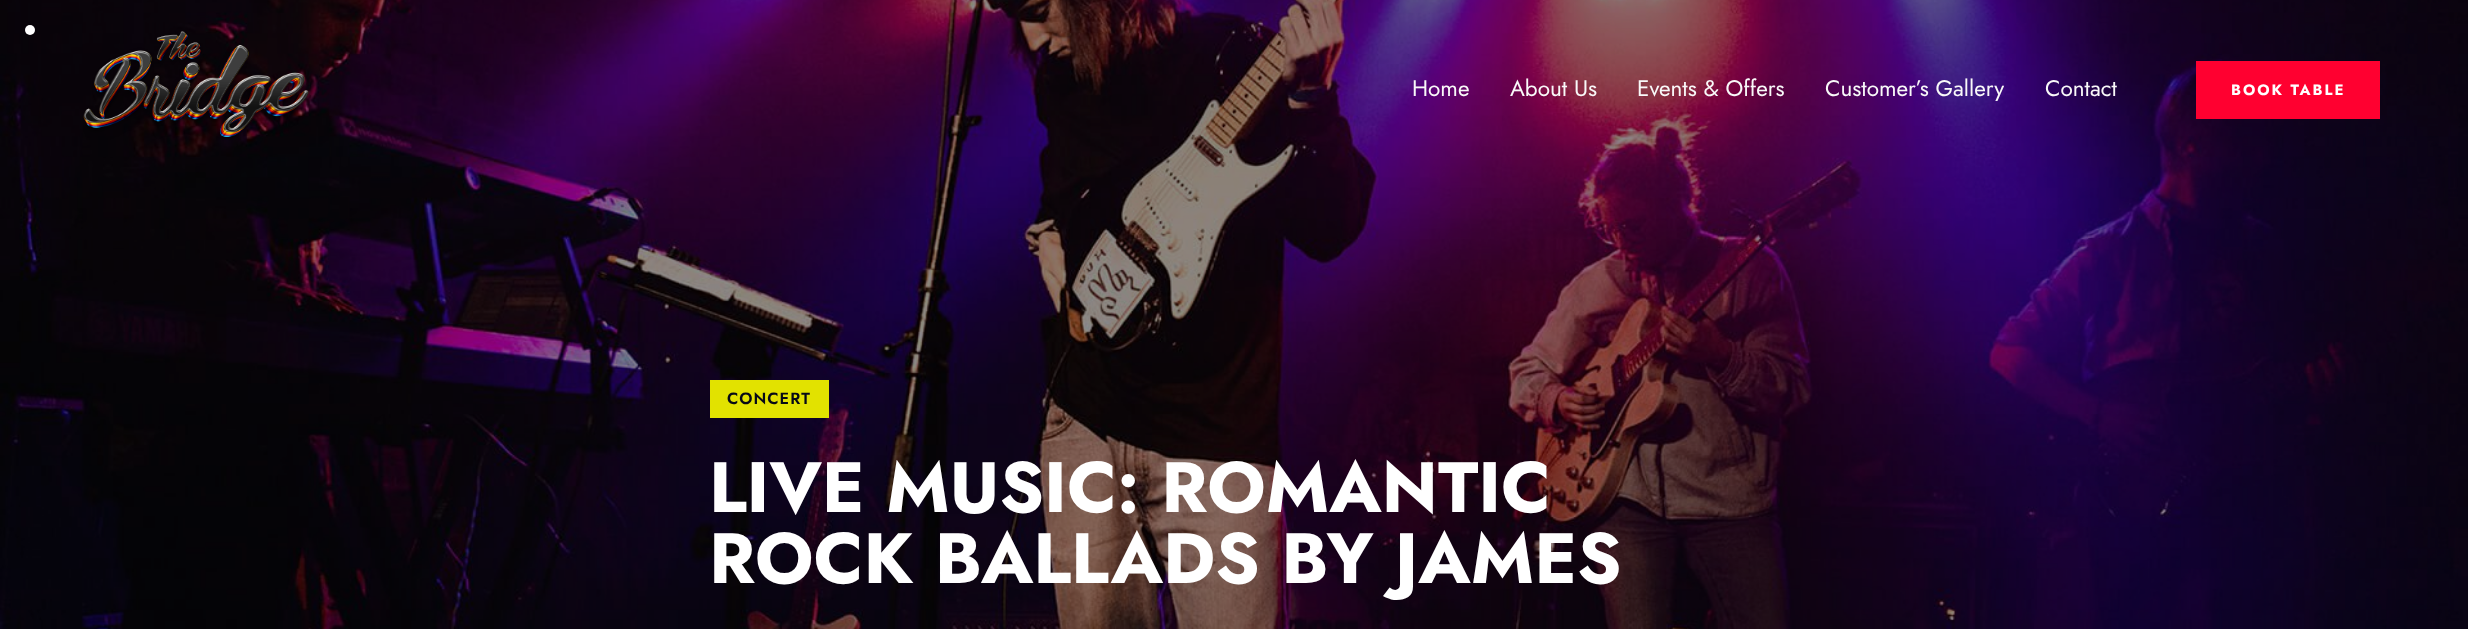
<!DOCTYPE html>
<meta charset="utf-8">
<style>body { margin: 0 } canvas { display: block }</style>
<canvas id="canvas" width="2468" height="629"></canvas>
<img id="img1" src="images/2.png" hidden>
<img id="img2" src="images/1.png" hidden>
<script>
window.onload = function () {
    const canvas = document.getElementById('canvas');
    const context = canvas.getContext('2d');
    context.miterLimit = 4;
    context.fontKerning = 'normal';

    context.fillStyle = 'rgb(255, 255, 255)';
    context.fillRect(0, 0, 2468, 629);
    context.drawImage(document.getElementById('img1'), 0, 0, 2468, 629);
    context.beginPath();
    context.arc(30, 30, 5, 0, 2 * Math.PI);
    context.fill();
    context.drawImage(document.getElementById('img2'), 83, 31, 226, 109);
    context.fillStyle = 'rgb(255, 0, 48)';
    context.fillRect(2196, 61, 184, 58);
    context.fillStyle = 'rgb(226, 226, 0)';
    context.fillRect(710, 380, 119, 38);
    context.font = '22.5px Jost';
    context.fillStyle = 'rgb(249, 249, 249)';
    context.fillText('Home', 1412, 96);
    context.fillText('About Us', 1510, 96);
    context.fillText('Events & Offers', 1637, 96);
    context.fillText('Customer’s Gallery', 1825, 96);
    context.fillText('Contact', 2045, 96);
    context.letterSpacing = '2px';
    context.font = 'bold 15px Jost';
    context.fillStyle = 'rgb(255, 255, 255)';
    context.fillText('BOOK TABLE', 2231, 95);
    context.letterSpacing = '1px';
    context.font = '600 16.25px Jost';
    context.fillStyle = 'rgb(6, 9, 23)';
    context.fillText('CONCERT', 727, 404);
    context.letterSpacing = '0px';
    context.font = 'bold 71.25px Jost';
    context.fillStyle = 'rgb(255, 255, 255)';
    context.fillText('LIVE MUSIC: ROMANTIC', 709, 512);
    context.fillText('ROCK BALLADS BY JAMES', 709, 583);
};
</script>
